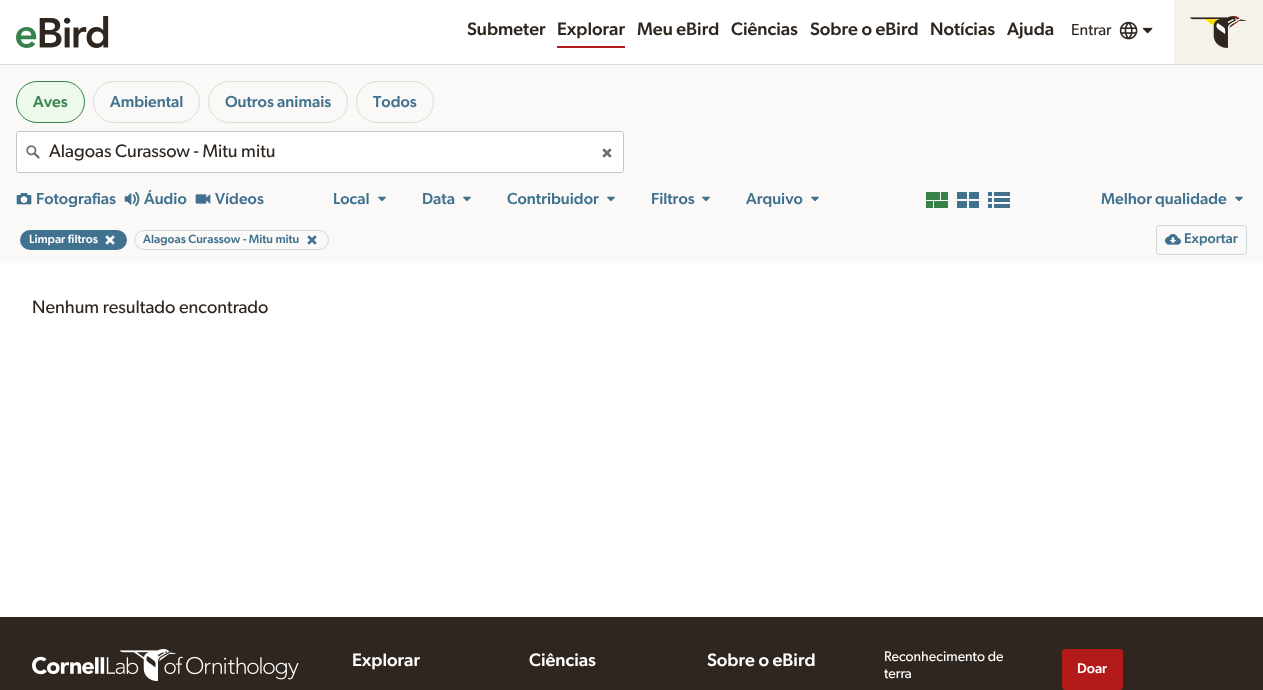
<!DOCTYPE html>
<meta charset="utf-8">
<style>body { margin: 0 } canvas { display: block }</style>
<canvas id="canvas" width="1263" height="690"></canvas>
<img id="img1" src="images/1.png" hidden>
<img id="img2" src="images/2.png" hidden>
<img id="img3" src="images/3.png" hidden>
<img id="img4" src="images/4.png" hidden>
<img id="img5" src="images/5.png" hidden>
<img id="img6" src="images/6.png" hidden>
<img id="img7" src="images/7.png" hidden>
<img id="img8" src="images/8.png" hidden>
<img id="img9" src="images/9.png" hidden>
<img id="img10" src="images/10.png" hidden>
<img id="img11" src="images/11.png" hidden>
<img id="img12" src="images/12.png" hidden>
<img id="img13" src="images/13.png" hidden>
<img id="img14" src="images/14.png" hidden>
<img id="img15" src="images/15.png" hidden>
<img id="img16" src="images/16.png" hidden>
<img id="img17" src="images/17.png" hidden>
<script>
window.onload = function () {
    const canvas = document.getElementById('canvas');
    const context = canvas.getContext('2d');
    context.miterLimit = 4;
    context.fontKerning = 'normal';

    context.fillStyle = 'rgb(255, 255, 255)';
    context.fillRect(0, 0, 1263, 690);
    context.fillStyle = 'rgb(219, 219, 217)';
    context.fillRect(0, 64, 1263, 1);
    context.drawImage(document.getElementById('img1'), 16, 16, 93, 32);
    context.fillStyle = 'rgb(179, 27, 27)';
    context.fillRect(557, 46, 68, 2);
    context.drawImage(document.getElementById('img2'), 1119, 21, 19, 19);
    context.drawImage(document.getElementById('img3'), 1142, 27, 11, 7);
    context.fillStyle = 'rgb(245, 243, 233)';
    context.fillRect(1174, 0, 89, 64);
    context.drawImage(document.getElementById('img4'), 1190, 16, 57, 32);
    context.fillStyle = 'rgb(250, 249, 247)';
    context.fillRect(0, 65, 1263, 198);
    context.fillStyle = 'rgb(236, 249, 235)';
    context.beginPath();
    context.roundRect(16.5, 81.5, 68, 41, 20.5);
    context.fill();
    context.strokeStyle = 'rgb(54, 130, 75)';
    context.stroke();
    context.beginPath();
    context.roundRect(93.5, 81.5, 106, 41, 20.5);
    context.strokeStyle = 'rgb(221, 220, 213)';
    context.stroke();
    context.beginPath();
    context.roundRect(208.5, 81.5, 139, 41, 20.5);
    context.stroke();
    context.beginPath();
    context.roundRect(356.5, 81.5, 77, 41, 20.5);
    context.stroke();
    context.fillStyle = 'rgb(255, 255, 255)';
    context.beginPath();
    context.roundRect(16.5, 131.5, 607, 41, 2.5);
    context.fill();
    context.strokeStyle = 'rgb(200, 199, 192)';
    context.stroke();
    context.drawImage(document.getElementById('img5'), 26, 145, 14, 14);
    context.drawImage(document.getElementById('img6'), 602, 148, 10, 10);
    context.drawImage(document.getElementById('img7'), 16, 193, 16, 12);
    context.drawImage(document.getElementById('img8'), 124, 191, 16, 16);
    context.drawImage(document.getElementById('img9'), 195, 194, 16, 10);
    context.drawImage(document.getElementById('img10'), 378, 196, 8, 6);
    context.drawImage(document.getElementById('img10'), 463, 196, 8, 6);
    context.drawImage(document.getElementById('img10'), 607, 196, 8, 6);
    context.drawImage(document.getElementById('img10'), 702, 196, 8, 6);
    context.drawImage(document.getElementById('img10'), 811, 196, 8, 6);
    context.drawImage(document.getElementById('img11'), 926, 192, 22, 16);
    context.drawImage(document.getElementById('img12'), 957, 192, 22, 16);
    context.drawImage(document.getElementById('img13'), 988, 192, 22, 16);
    context.drawImage(document.getElementById('img10'), 1235, 196, 8, 6);
    context.fillStyle = 'rgb(64, 113, 143)';
    context.beginPath();
    context.roundRect(20, 230, 107, 20, 10);
    context.fill();
    context.drawImage(document.getElementById('img14'), 105, 235, 10, 10);
    context.beginPath();
    context.roundRect(134.5, 230.5, 194, 19, 9.5);
    context.strokeStyle = 'rgb(204, 215, 221)';
    context.stroke();
    context.drawImage(document.getElementById('img15'), 307, 235, 10, 10);
    context.beginPath();
    context.roundRect(1156.5, 225.5, 90, 29, 2.5);
    context.stroke();
    context.drawImage(document.getElementById('img16'), 1165, 234, 16, 11);
    context.fillStyle = 'rgb(46, 38, 31)';
    context.fillRect(0, 617, 1263, 73);
    context.drawImage(document.getElementById('img17'), 32, 649, 267, 32);
    context.fillStyle = 'rgb(179, 27, 27)';
    context.beginPath();
    context.roundRect(1062, 649, 61, 41, 3);
    context.fill();
    context.font = '500 18.1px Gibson';
    context.fillStyle = 'rgb(46, 38, 31)';
    context.fillText('Submeter', 467, 35);
    context.fillText('Explorar', 557, 35);
    context.fillText('Meu eBird', 637, 35);
    context.fillText('Ciências', 731, 35);
    context.fillText('Sobre o eBird', 810, 35);
    context.fillText('Notícias', 930, 35);
    context.fillText('Ajuda', 1007, 35);
    context.font = '16px Gibson';
    context.fillText('Entrar', 1071, 35);
    context.font = '500 16px Gibson';
    context.fillStyle = 'rgb(54, 130, 75)';
    context.fillText('Aves', 33, 107);
    context.fillStyle = 'rgb(64, 113, 143)';
    context.fillText('Ambiental', 110, 107);
    context.fillText('Outros animais', 225, 107);
    context.fillText('Todos', 373, 107);
    context.font = '18.1px Gibson';
    context.fillStyle = 'rgb(46, 38, 31)';
    context.fillText('Alagoas Curassow - Mitu mitu', 49, 157);
    context.font = '500 16px Gibson';
    context.fillStyle = 'rgb(64, 113, 143)';
    context.fillText('Fotografias', 36, 204);
    context.fillText('Áudio', 144, 204);
    context.fillText('Vídeos', 215, 204);
    context.fillText('Local', 333, 204);
    context.fillText('Data', 422, 204);
    context.fillText('Contribuidor', 507, 204);
    context.fillText('Filtros', 651, 204);
    context.fillText('Arquivo', 746, 204);
    context.fillText('Melhor qualidade', 1101, 204);
    context.font = '500 12px Gibson';
    context.fillStyle = 'rgb(255, 255, 255)';
    context.fillText('Limpar filtros', 29, 243);
    context.fillStyle = 'rgb(64, 113, 143)';
    context.fillText('Alagoas Curassow - Mitu mitu', 143, 243);
    context.font = '500 14px Gibson';
    context.fillText('Exportar', 1184, 243);
    context.font = '18.1px Gibson';
    context.fillStyle = 'rgb(46, 38, 31)';
    context.fillText('Nenhum resultado encontrado', 32, 313);
    context.font = '500 18.1px Gibson';
    context.fillStyle = 'rgb(255, 255, 255)';
    context.fillText('Explorar', 352, 666);
    context.fillText('Ciências', 529, 666);
    context.fillText('Sobre o eBird', 707, 666);
    context.font = '14px Gibson';
    context.fillText('Reconhecimento de', 884, 661);
    context.fillText('terra', 884, 678);
    context.font = '500 14px Gibson';
    context.fillText('Doar', 1077, 673);
};
</script>
